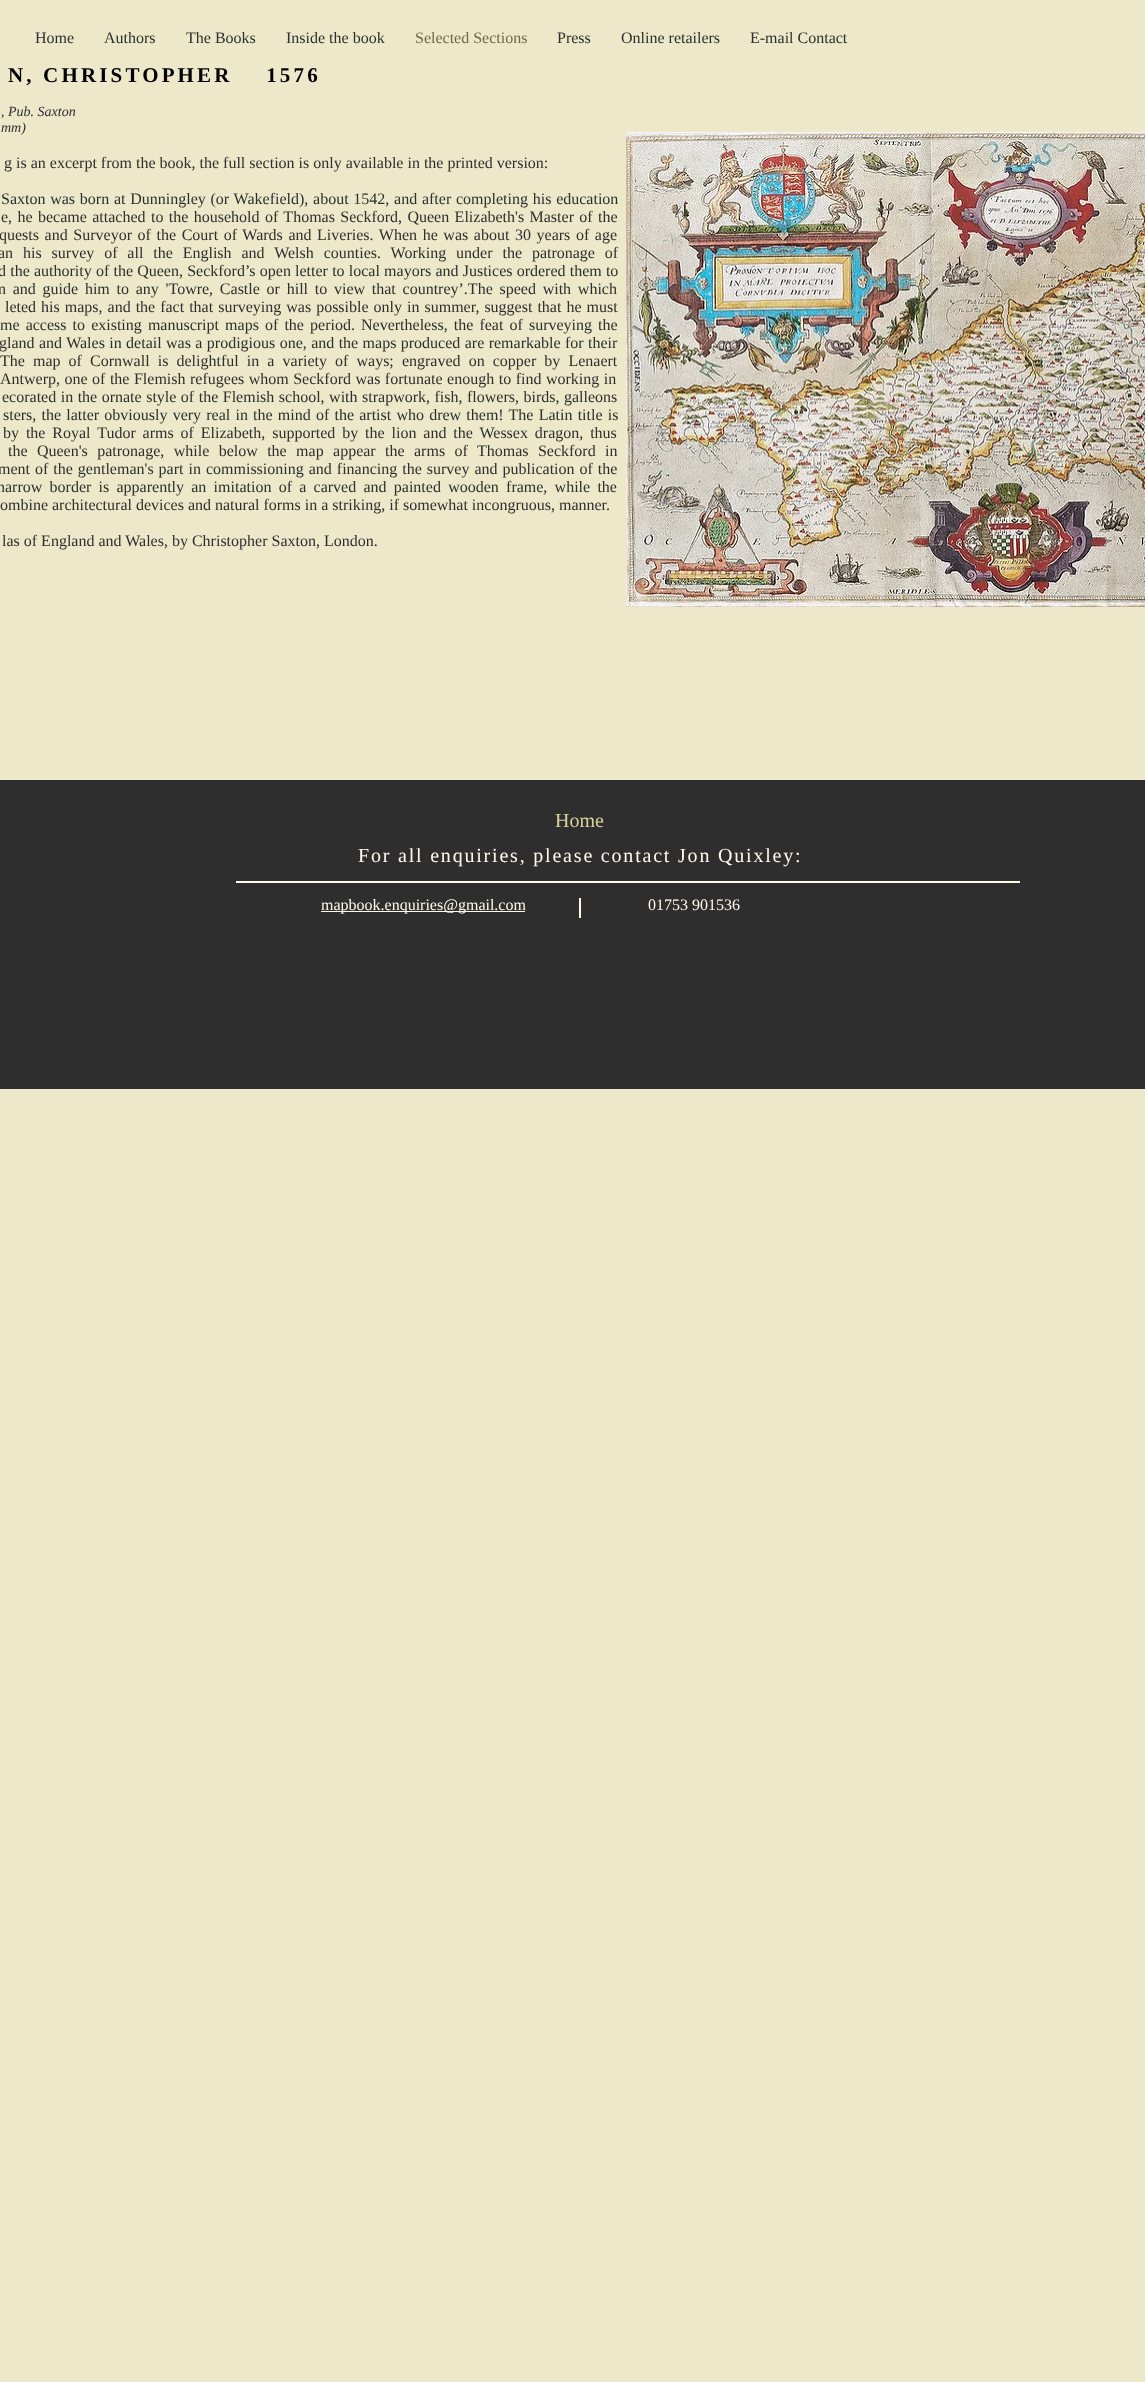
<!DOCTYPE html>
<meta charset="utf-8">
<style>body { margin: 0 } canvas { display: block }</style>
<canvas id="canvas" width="1145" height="2382"></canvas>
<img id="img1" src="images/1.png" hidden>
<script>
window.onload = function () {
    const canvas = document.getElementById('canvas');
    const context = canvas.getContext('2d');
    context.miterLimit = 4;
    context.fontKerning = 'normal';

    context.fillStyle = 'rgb(237, 232, 201)';
    context.fillRect(0, 0, 1145, 2382);
    context.drawImage(document.getElementById('img1'), 626, 132, 519, 475);
    context.fillStyle = 'rgb(47, 46, 46)';
    context.fillRect(0, 780, 1145, 309);
    context.fillStyle = 'rgb(255, 252, 236)';
    context.fillRect(236, 881, 784, 2);
    context.fillRect(321, 911, 204, 1);
    context.fillRect(579, 898, 2, 20);
    context.font = '16px Liberation Serif';
    context.fillStyle = 'rgb(47, 46, 46)';
    context.fillText('Home', 35, 43);
    context.fillText('Authors', 104, 43);
    context.fillText('The Books', 186, 43);
    context.fillText('Inside the book', 286, 43);
    context.fillStyle = 'rgb(109, 105, 77)';
    context.fillText('Selected Sections', 415, 43);
    context.fillStyle = 'rgb(47, 46, 46)';
    context.fillText('Press', 557, 43);
    context.fillText('Online retailers', 621, 43);
    context.fillText('E-mail Contact', 750, 43);
    context.letterSpacing = '3.15px';
    context.font = 'bold 21px Liberation Serif';
    context.fillStyle = 'rgb(0, 0, 0)';
    context.fillText('N, CHRISTOPHER    1576', 8, 82);
    context.letterSpacing = '0px';
    context.font = 'italic 14px Liberation Serif';
    context.fillStyle = 'rgb(47, 46, 46)';
    context.fillText(', Pub. Saxton', 1, 116);
    context.fillText('mm)', 1, 132);
    context.font = '16px Liberation Serif';
    context.fillText('g is an excerpt from the book, the full section is only available in the printed version:', 4, 168);
    context.wordSpacing = '0.75px';
    context.fillText('Saxton was born at Dunningley (or Wakefield), about 1542, and after completing his education', 1, 204);
    context.wordSpacing = '1.4px';
    context.fillText('e, he became attached to the household of Thomas Seckford, Queen Elizabeth\'s Master of the', 1, 222);
    context.wordSpacing = '1.6px';
    context.fillText('quests and Surveyor of the Court of Wards and Liveries. When he was about 30 years of age', -1, 240);
    context.wordSpacing = '5.9px';
    context.fillText('an his survey of all the English and Welsh counties. Working under the patronage of', -2, 258);
    context.wordSpacing = '0.2px';
    context.fillText('d the authority of the Queen, Seckford’s open letter to local mayors and Justices ordered them to', -2, 276);
    context.wordSpacing = '2.75px';
    context.fillText('n and guide him to any \'Towre, Castle or hill to view that countrey’.The speed with which', -2, 294);
    context.wordSpacing = '1px';
    context.fillText('leted his maps, and the fact that surveying was possible only in summer, suggest that he must', 5, 312);
    context.wordSpacing = '2.1px';
    context.fillText('me access to existing manuscript maps of the period. Nevertheless, the feat of surveying the', 0, 330);
    context.wordSpacing = '0.4px';
    context.fillText('gland and Wales in detail was a prodigious one, and the maps produced are remarkable for their', -1, 348);
    context.wordSpacing = '4.1px';
    context.fillText('The map of Cornwall is delightful in a variety of ways; engraved on copper by Lenaert', 0, 366);
    context.wordSpacing = '0.5px';
    context.fillText('Antwerp, one of the Flemish refugees whom Seckford was fortunate enough to find working in', 0, 384);
    context.fillText('ecorated in the ornate style of the Flemish school, with strapwork, fish, flowers, birds, galleons', 2, 402);
    context.wordSpacing = '1.2px';
    context.fillText('sters, the latter obviously very real in the mind of the artist who drew them! The Latin title is', 3, 420);
    context.wordSpacing = '2.9px';
    context.fillText('by the Royal Tudor arms of Elizabeth, supported by the lion and the Wessex dragon, thus', 3, 438);
    context.wordSpacing = '5.4px';
    context.fillText('the Queen\'s patronage, while below the map appear the arms of Thomas Seckford in', 8, 456);
    context.wordSpacing = '1px';
    context.fillText('ment of the gentleman\'s part in commissioning and financing the survey and publication of the', -2, 474);
    context.wordSpacing = '3.25px';
    context.fillText('narrow border is apparently an imitation of a carved and painted wooden frame, while the', -3, 492);
    context.wordSpacing = '0px';
    context.fillText('ombine architectural devices and natural forms in a striking, if somewhat incongruous, manner.', 0, 510);
    context.fillText('las of England and Wales, by Christopher Saxton, London.', 2, 546);
    context.font = '20px Liberation Serif';
    context.fillStyle = 'rgb(218, 210, 153)';
    context.fillText('Home', 555, 827);
    context.letterSpacing = '1.8px';
    context.fillStyle = 'rgb(255, 252, 236)';
    context.fillText('For all enquiries, please contact Jon Quixley:', 358, 862);
    context.letterSpacing = '0px';
    context.font = '16px Liberation Serif';
    context.fillText('mapbook.enquiries@gmail.com', 321, 910);
    context.fillText('01753 901536', 648, 910);
};
</script>
